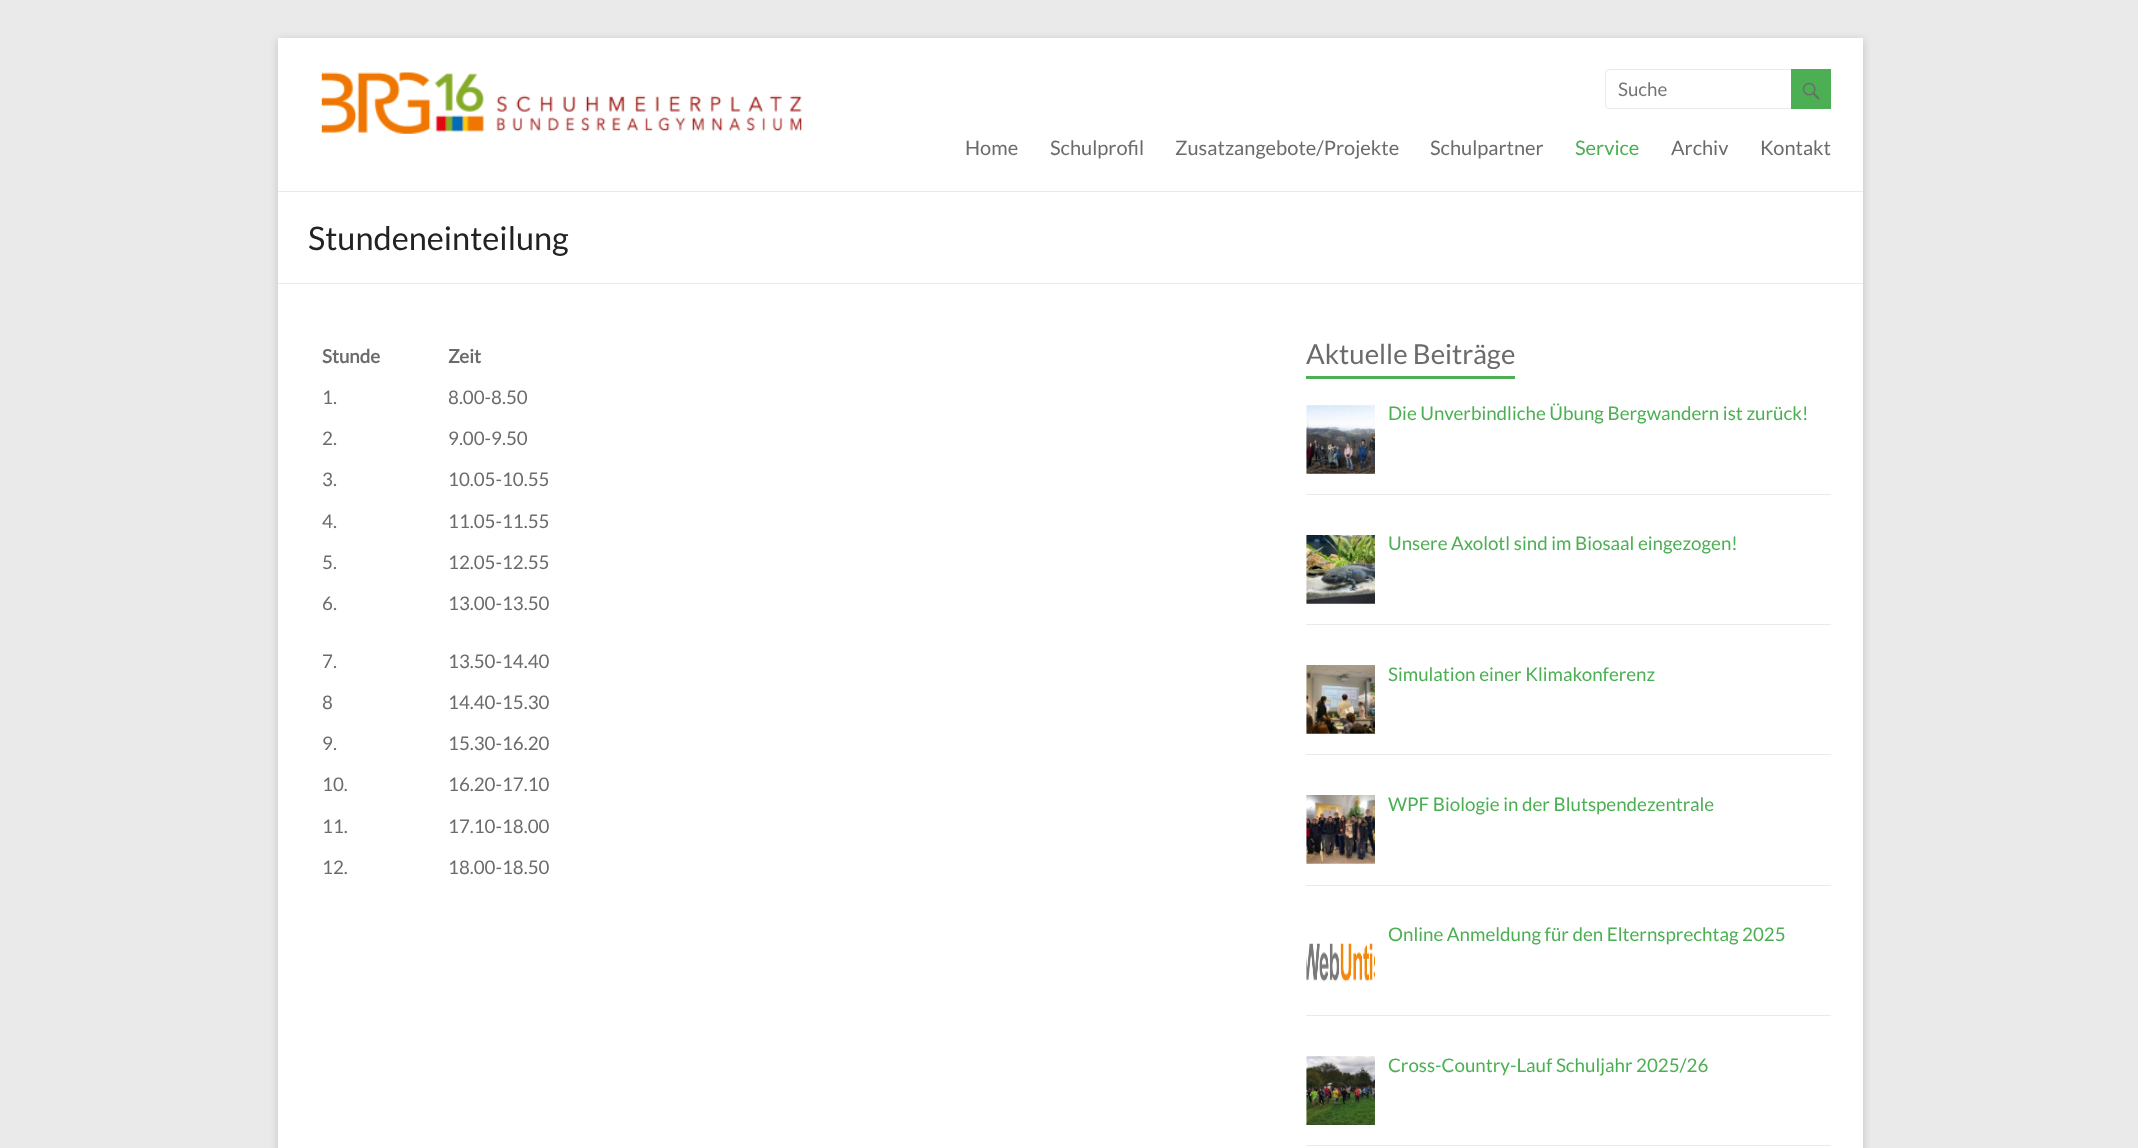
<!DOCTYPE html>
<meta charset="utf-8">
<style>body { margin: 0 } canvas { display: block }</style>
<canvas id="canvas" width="2138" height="1148"></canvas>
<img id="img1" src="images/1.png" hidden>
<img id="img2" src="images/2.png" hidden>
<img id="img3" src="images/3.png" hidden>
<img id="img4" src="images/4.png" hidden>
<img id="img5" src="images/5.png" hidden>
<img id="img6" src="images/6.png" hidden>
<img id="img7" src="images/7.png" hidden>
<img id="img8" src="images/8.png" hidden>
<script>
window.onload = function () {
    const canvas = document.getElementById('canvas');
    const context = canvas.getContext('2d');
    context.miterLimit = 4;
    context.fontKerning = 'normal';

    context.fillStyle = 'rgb(234, 234, 234)';
    context.fillRect(0, 0, 2138, 1148);
    context.fillStyle = 'rgba(100, 100, 100, 0.3)';
    context.filter = 'blur(4px)';
    context.beginPath();
    context.rect(278, 40, 1585, 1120);
    context.fill();
    context.filter = 'none';
    context.fillStyle = 'rgb(255, 255, 255)';
    context.fillRect(278, 38, 1585, 1110);
    context.fillStyle = 'rgb(234, 234, 234)';
    context.fillRect(278, 191, 1585, 1);
    context.drawImage(document.getElementById('img1'), 321, 72, 481, 62);
    context.beginPath();
    context.roundRect(1605.5, 69.5, 189, 39, 3.5);
    context.strokeStyle = 'rgb(234, 234, 234)';
    context.stroke();
    context.fillStyle = 'rgb(76, 175, 83)';
    context.fillRect(1791, 69, 40, 40);
    context.drawImage(document.getElementById('img2'), 1802, 82, 18, 18);
    context.fillStyle = 'rgb(234, 234, 234)';
    context.fillRect(278, 283, 1585, 1);
    context.fillStyle = 'rgb(76, 175, 83)';
    context.fillRect(1306, 376, 209, 3);
    context.fillStyle = 'rgb(234, 234, 234)';
    context.fillRect(1306, 494, 525, 1);
    context.drawImage(document.getElementById('img3'), 1306, 405, 69, 69);
    context.fillRect(1306, 624, 525, 1);
    context.drawImage(document.getElementById('img4'), 1306, 535, 69, 69);
    context.fillRect(1306, 754, 525, 1);
    context.drawImage(document.getElementById('img5'), 1306, 665, 69, 69);
    context.fillRect(1306, 885, 525, 1);
    context.drawImage(document.getElementById('img6'), 1306, 795, 69, 69);
    context.fillRect(1306, 1015, 525, 1);
    context.drawImage(document.getElementById('img7'), 1306, 943, 69, 39);
    context.fillRect(1306, 1145, 525, 1);
    context.drawImage(document.getElementById('img8'), 1306, 1056, 69, 69);
    context.font = '18.75px Lato';
    context.fillStyle = 'rgb(117, 117, 117)';
    context.fillText('Suche', 1618, 96);
    context.font = '20px Lato';
    context.fillStyle = 'rgb(106, 107, 109)';
    context.fillText('Home', 965, 155);
    context.fillText('Schulprofil', 1050, 155);
    context.fillText('Zusatzangebote/Projekte', 1175, 155);
    context.fillText('Schulpartner', 1430, 155);
    context.fillStyle = 'rgb(76, 175, 83)';
    context.fillText('Service', 1575, 155);
    context.fillStyle = 'rgb(106, 107, 109)';
    context.fillText('Archiv', 1671, 155);
    context.fillText('Kontakt', 1760, 155);
    context.font = '32.5px Lato';
    context.fillStyle = 'rgb(34, 34, 34)';
    context.fillText('Stundeneinteilung', 308, 250);
    context.font = 'bold 18.75px Lato';
    context.fillStyle = 'rgb(106, 107, 109)';
    context.fillText('Stunde', 322, 363);
    context.fillText('Zeit', 448, 363);
    context.font = '18.75px Lato';
    context.fillText('1.', 322, 404);
    context.fillText('8.00-8.50', 448, 404);
    context.fillText('2.', 322, 445);
    context.fillText('9.00-9.50', 448, 445);
    context.fillText('3.', 322, 486);
    context.fillText('10.05-10.55', 448, 486);
    context.fillText('4.', 322, 528);
    context.fillText('11.05-11.55', 448, 528);
    context.fillText('5.', 322, 569);
    context.fillText('12.05-12.55', 448, 569);
    context.fillText('6.', 322, 610);
    context.fillText('13.00-13.50', 448, 610);
    context.fillText('7.', 322, 668);
    context.fillText('13.50-14.40', 448, 668);
    context.fillText('8', 322, 709);
    context.fillText('14.40-15.30', 448, 709);
    context.fillText('9.', 322, 750);
    context.fillText('15.30-16.20', 448, 750);
    context.fillText('10.', 322, 791);
    context.fillText('16.20-17.10', 448, 791);
    context.fillText('11.', 322, 833);
    context.fillText('17.10-18.00', 448, 833);
    context.fillText('12.', 322, 874);
    context.fillText('18.00-18.50', 448, 874);
    context.font = '27.5px Lato';
    context.fillText('Aktuelle Beiträge', 1306, 364);
    context.font = '18.75px Lato';
    context.fillStyle = 'rgb(76, 175, 83)';
    context.fillText('Die Unverbindliche Übung Bergwandern ist zurück!', 1388, 420);
    context.fillText('Unsere Axolotl sind im Biosaal eingezogen!', 1388, 550);
    context.fillText('Simulation einer Klimakonferenz', 1388, 681);
    context.fillText('WPF Biologie in der Blutspendezentrale', 1388, 811);
    context.fillText('Online Anmeldung für den Elternsprechtag 2025', 1388, 941);
    context.fillText('Cross-Country-Lauf Schuljahr 2025/26', 1388, 1072);
};
</script>
